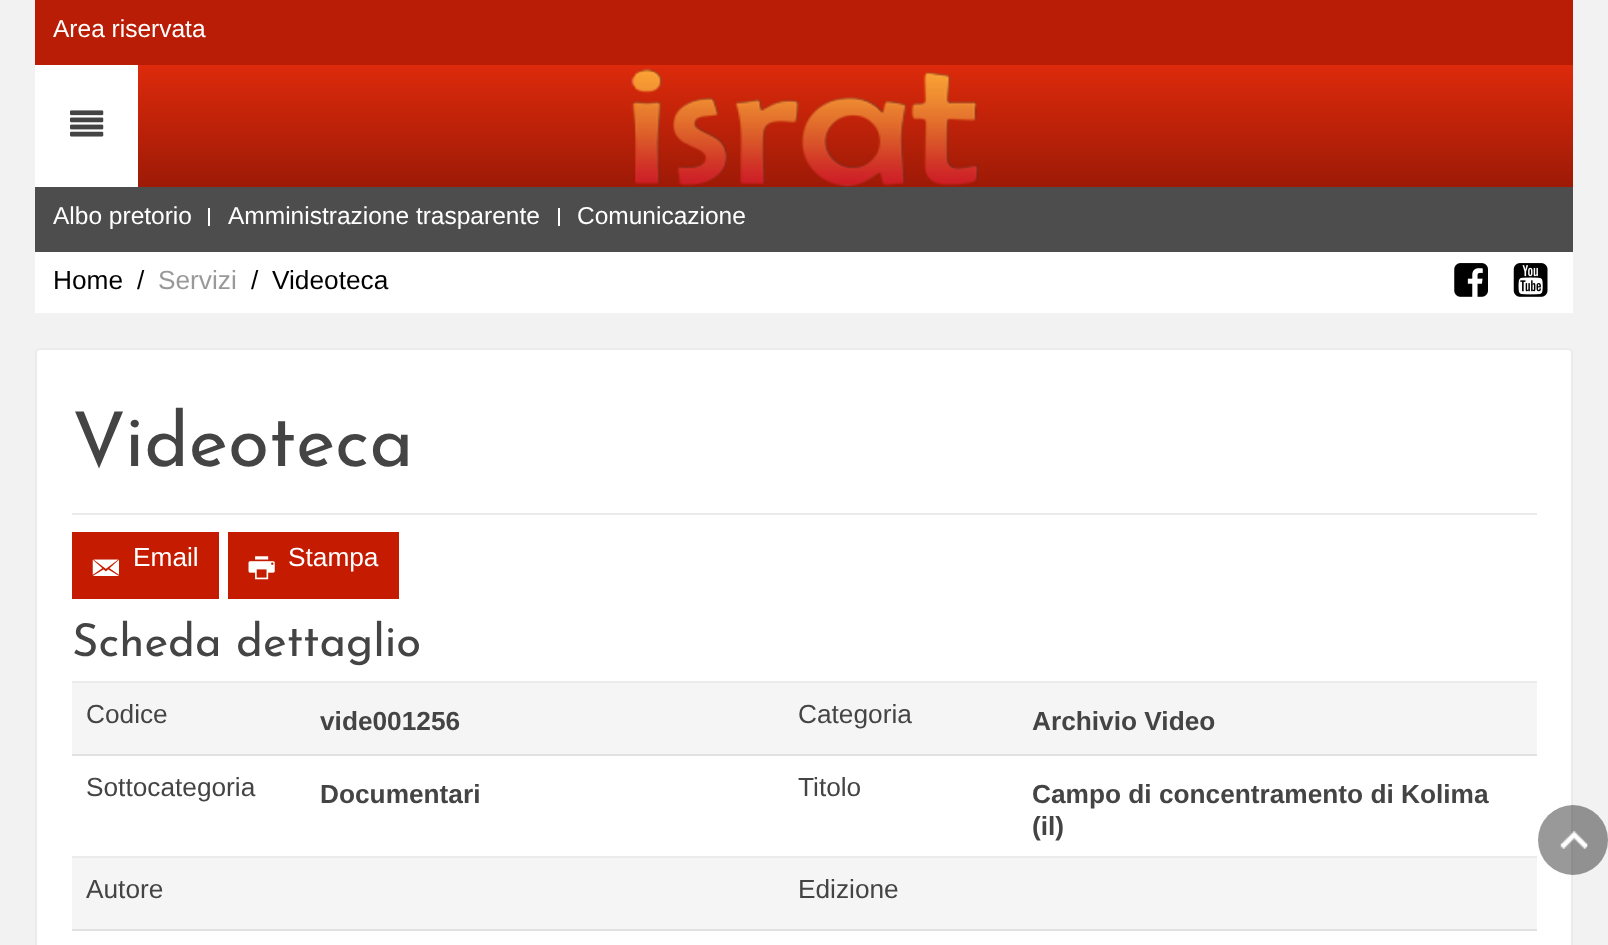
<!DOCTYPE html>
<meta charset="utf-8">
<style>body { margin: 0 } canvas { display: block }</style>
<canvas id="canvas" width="1608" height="945"></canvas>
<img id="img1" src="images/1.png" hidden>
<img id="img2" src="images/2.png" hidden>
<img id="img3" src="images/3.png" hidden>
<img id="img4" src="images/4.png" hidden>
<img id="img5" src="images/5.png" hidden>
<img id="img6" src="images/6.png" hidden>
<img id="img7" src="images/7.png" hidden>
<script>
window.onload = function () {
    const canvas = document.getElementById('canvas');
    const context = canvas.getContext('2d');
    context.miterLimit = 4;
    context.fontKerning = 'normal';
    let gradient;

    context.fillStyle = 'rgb(242, 242, 242)';
    context.fillRect(0, 0, 1608, 945);
    context.fillStyle = 'rgb(186, 29, 5)';
    context.fillRect(35, 0, 1538, 65);
    gradient = context.createLinearGradient(804, 65, 804, 187);
    gradient.addColorStop(0, 'rgb(221, 42, 11)');
    gradient.addColorStop(1, 'rgb(157, 26, 6)');
    context.fillStyle = gradient;
    context.fillRect(138, 65, 1435, 122);
    context.fillStyle = 'rgb(255, 255, 255)';
    context.fillRect(35, 65, 103, 122);
    context.drawImage(document.getElementById('img1'), 70, 110, 34, 27);
    context.drawImage(document.getElementById('img2'), 631, 68, 348, 119);
    context.fillStyle = 'rgb(77, 77, 77)';
    context.fillRect(35, 187, 1538, 65);
    context.fillStyle = 'rgb(255, 255, 255)';
    context.fillRect(208, 208, 2, 18);
    context.fillRect(558, 208, 2, 18);
    context.fillRect(35, 252, 1538, 61);
    context.drawImage(document.getElementById('img3'), 1454, 263, 34, 34);
    context.drawImage(document.getElementById('img4'), 1513, 263, 35, 34);
    context.beginPath();
    context.roundRect(35, 348, 1538, 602, 5);
    context.fill();
    context.beginPath();
    context.roundRect(36, 349, 1536, 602, 4);
    context.strokeStyle = 'rgba(0, 0, 0, 0.08)';
    context.lineWidth = 2;
    context.stroke();
    context.fillStyle = 'rgb(235, 235, 235)';
    context.fillRect(72, 513, 1465, 2);
    context.fillStyle = 'rgb(196, 27, 1)';
    context.fillRect(72, 532, 147, 67);
    context.drawImage(document.getElementById('img5'), 92, 559, 27, 17);
    context.fillRect(228, 532, 171, 67);
    context.drawImage(document.getElementById('img6'), 248, 556, 27, 24);
    context.fillStyle = 'rgb(235, 235, 235)';
    context.fillRect(72, 681, 1465, 2);
    context.fillStyle = 'rgb(245, 245, 245)';
    context.fillRect(72, 683, 1465, 71);
    context.fillStyle = 'rgb(225, 225, 225)';
    context.fillRect(72, 754, 1465, 2);
    context.fillStyle = 'rgb(235, 235, 235)';
    context.fillRect(72, 856, 1465, 2);
    context.fillStyle = 'rgb(245, 245, 245)';
    context.fillRect(72, 858, 1465, 71);
    context.fillStyle = 'rgb(225, 225, 225)';
    context.fillRect(72, 929, 1465, 2);
    context.fillStyle = 'rgba(0, 0, 0, 0.4)';
    context.beginPath();
    context.arc(1573, 840, 35, 0, 2 * Math.PI);
    context.fill();
    context.drawImage(document.getElementById('img7'), 1560, 831, 28, 18);
    context.font = '24.5px Liberation Sans';
    context.fillStyle = 'rgb(255, 255, 255)';
    context.fillText('Area riservata', 53, 37);
    context.fillText('Albo pretorio', 53, 224);
    context.fillText('Amministrazione trasparente', 228, 224);
    context.fillText('Comunicazione', 577, 224);
    context.font = '26.25px Liberation Sans';
    context.fillStyle = 'rgb(0, 0, 0)';
    context.fillText('Home', 53, 289);
    context.fillText('/', 137, 289);
    context.fillStyle = 'rgb(153, 153, 153)';
    context.fillText('Servizi', 158, 289);
    context.fillStyle = 'rgb(0, 0, 0)';
    context.fillText('/', 251, 289);
    context.fillText('Videoteca', 272, 289);
    context.font = '100 75.25px Josefin Sans';
    context.fillStyle = 'rgb(68, 68, 68)';
    context.fillText('Videoteca', 72, 466);
    context.font = '26.25px Liberation Sans';
    context.fillStyle = 'rgb(255, 255, 255)';
    context.fillText('Email', 133, 566);
    context.fillText('Stampa', 288, 566);
    context.font = '100 45.5px Josefin Sans';
    context.fillStyle = 'rgb(68, 68, 68)';
    context.fillText('Scheda dettaglio', 72, 656);
    context.font = '26.25px Liberation Sans';
    context.fillText('Codice', 86, 723);
    context.font = 'bold 26.25px Liberation Sans';
    context.fillText('vide001256', 320, 730);
    context.font = '26.25px Liberation Sans';
    context.fillText('Categoria', 798, 723);
    context.font = 'bold 26.25px Liberation Sans';
    context.fillText('Archivio Video', 1032, 730);
    context.font = '26.25px Liberation Sans';
    context.fillText('Sottocategoria', 86, 796);
    context.font = 'bold 26.25px Liberation Sans';
    context.fillText('Documentari', 320, 803);
    context.font = '26.25px Liberation Sans';
    context.fillText('Titolo', 798, 796);
    context.font = 'bold 26.25px Liberation Sans';
    context.fillText('Campo di concentramento di Kolima', 1032, 803);
    context.fillText('(il)', 1032, 835);
    context.font = '26.25px Liberation Sans';
    context.fillText('Autore', 86, 898);
    context.fillText('Edizione', 798, 898);
};
</script>
